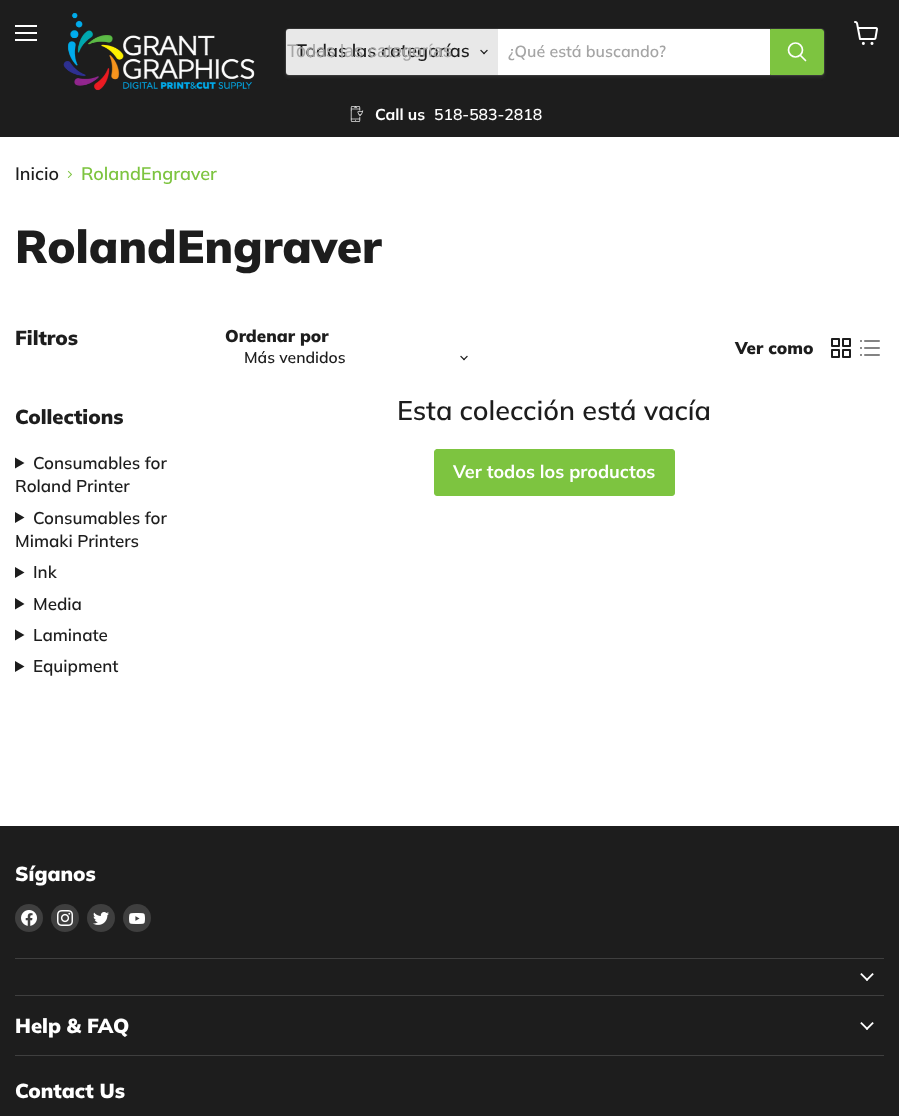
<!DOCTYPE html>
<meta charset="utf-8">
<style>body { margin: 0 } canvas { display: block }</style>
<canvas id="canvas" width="899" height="1116"></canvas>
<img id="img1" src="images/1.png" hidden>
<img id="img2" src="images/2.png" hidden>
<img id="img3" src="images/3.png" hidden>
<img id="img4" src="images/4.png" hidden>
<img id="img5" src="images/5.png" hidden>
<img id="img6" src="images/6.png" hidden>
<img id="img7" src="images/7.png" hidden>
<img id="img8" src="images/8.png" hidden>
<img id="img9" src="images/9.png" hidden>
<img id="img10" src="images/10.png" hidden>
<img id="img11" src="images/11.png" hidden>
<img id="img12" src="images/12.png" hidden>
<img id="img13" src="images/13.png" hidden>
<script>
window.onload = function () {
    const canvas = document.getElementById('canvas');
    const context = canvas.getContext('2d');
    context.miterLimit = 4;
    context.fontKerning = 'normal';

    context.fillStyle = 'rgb(255, 255, 255)';
    context.fillRect(0, 0, 899, 1116);
    context.fillStyle = 'rgb(29, 29, 29)';
    context.fillRect(0, 0, 899, 137);
    context.fillStyle = 'rgb(255, 255, 255)';
    context.fillRect(15, 25, 22, 2);
    context.fillRect(15, 32, 22, 2);
    context.fillRect(15, 39, 22, 2);
    context.drawImage(document.getElementById('img1'), 854, 21, 24, 24);
    context.drawImage(document.getElementById('img2'), 63, 13, 192, 78);
    context.fillStyle = 'rgba(128, 128, 128, 0.11)';
    context.filter = 'blur(1.5px)';
    context.beginPath();
    context.roundRect(285, 30, 540, 48, 4);
    context.fill();
    context.filter = 'none';
    context.beginPath();
    context.roundRect(285.5, 28.5, 539, 47, 3.5);
    context.strokeStyle = 'rgba(128, 128, 128, 0.2)';
    context.stroke();
    context.fillStyle = 'rgb(232, 232, 232)';
    context.beginPath();
    context.roundRect(286, 29, 212, 46, [3, 0, 0, 3]);
    context.fill();
    context.drawImage(document.getElementById('img3'), 480, 49, 8, 6);
    context.fillStyle = 'rgb(255, 255, 255)';
    context.fillRect(498, 29, 272, 46);
    context.fillStyle = 'rgb(125, 196, 64)';
    context.beginPath();
    context.roundRect(770.5, 29.5, 53, 45, [0, 2.5, 2.5, 0]);
    context.fill();
    context.strokeStyle = 'rgb(125, 196, 64)';
    context.stroke();
    context.beginPath();
    context.moveTo(805.5, 60.5);
    context.lineTo(800.5, 55.5);
    context.strokeStyle = 'rgb(255, 255, 255)';
    context.lineWidth = 1.7;
    context.lineCap = 'round';
    context.stroke();
    context.beginPath();
    context.arc(795.5, 50, 7, 0, 2 * Math.PI);
    context.stroke();
    context.drawImage(document.getElementById('img4'), 350, 106, 14, 16);
    context.drawImage(document.getElementById('img5'), 67, 170, 5, 8);
    context.fillStyle = 'rgb(29, 29, 29)';
    context.beginPath();
    context.moveTo(15, 457.5);
    context.lineTo(24.5, 463);
    context.lineTo(15, 468.5);
    context.closePath();
    context.fill();
    context.beginPath();
    context.moveTo(15, 512);
    context.lineTo(24.5, 517.5);
    context.lineTo(15, 523);
    context.closePath();
    context.fill();
    context.beginPath();
    context.moveTo(15, 567);
    context.lineTo(24.5, 572.5);
    context.lineTo(15, 578);
    context.closePath();
    context.fill();
    context.beginPath();
    context.moveTo(15, 598);
    context.lineTo(24.5, 604);
    context.lineTo(15, 609.5);
    context.closePath();
    context.fill();
    context.beginPath();
    context.moveTo(15, 629.5);
    context.lineTo(24.5, 635);
    context.lineTo(15, 640.5);
    context.closePath();
    context.fill();
    context.beginPath();
    context.moveTo(15, 661);
    context.lineTo(24.5, 666.5);
    context.lineTo(15, 672);
    context.closePath();
    context.fill();
    context.drawImage(document.getElementById('img6'), 460, 355, 8, 6);
    context.drawImage(document.getElementById('img7'), 831, 338, 20, 20);
    context.drawImage(document.getElementById('img8'), 860, 340, 20, 16);
    context.fillStyle = 'rgb(125, 196, 64)';
    context.beginPath();
    context.roundRect(434.5, 449.5, 240, 46, 2.5);
    context.fill();
    context.strokeStyle = 'rgb(125, 196, 64)';
    context.lineWidth = 1;
    context.stroke();
    context.fillStyle = 'rgb(29, 29, 29)';
    context.fillRect(0, 826, 899, 290);
    context.fillStyle = 'rgb(63, 63, 63)';
    context.fillRect(15, 958, 869, 1);
    context.beginPath();
    context.arc(29, 918, 14, 0, 2 * Math.PI);
    context.fill();
    context.drawImage(document.getElementById('img9'), 21, 910, 16, 16);
    context.beginPath();
    context.arc(65, 918, 14, 0, 2 * Math.PI);
    context.fill();
    context.drawImage(document.getElementById('img10'), 57, 910, 16, 16);
    context.beginPath();
    context.arc(101, 918, 14, 0, 2 * Math.PI);
    context.fill();
    context.drawImage(document.getElementById('img11'), 93, 912, 16, 13);
    context.beginPath();
    context.arc(137, 918, 14, 0, 2 * Math.PI);
    context.fill();
    context.drawImage(document.getElementById('img12'), 129, 913, 16, 11);
    context.fillRect(15, 995, 869, 1);
    context.drawImage(document.getElementById('img13'), 860, 973, 14, 8);
    context.fillRect(15, 1055, 869, 1);
    context.drawImage(document.getElementById('img13'), 860, 1022, 14, 8);
    context.font = '600 18px Muli';
    context.fillStyle = 'rgb(29, 29, 29)';
    context.fillText('Todas las categorías', 296, 57);
    context.font = '18px Liberation Sans';
    context.fillStyle = 'rgb(165, 165, 165)';
    context.fillText('Todas las categorías', 287, 57);
    context.font = '600 16px Muli';
    context.fillText('¿Qué está buscando?', 508, 57);
    context.font = 'bold 15.75px Muli';
    context.fillStyle = 'rgb(255, 255, 255)';
    context.fillText('Call us', 375, 120);
    context.font = '600 15.75px Muli';
    context.fillText('518-583-2818', 434, 120);
    context.font = '600 18px Muli';
    context.fillStyle = 'rgb(29, 29, 29)';
    context.fillText('Inicio', 15, 180);
    context.fillStyle = 'rgb(125, 196, 64)';
    context.fillText('RolandEngraver', 81, 180);
    context.font = '900 46px Muli';
    context.fillStyle = 'rgb(29, 29, 29)';
    context.fillText('RolandEngraver', 15, 263);
    context.font = '900 20.25px Muli';
    context.fillText('Filtros', 15, 345);
    context.fillText('Collections', 15, 424);
    context.font = '600 17px Muli';
    context.fillText('Consumables for', 33, 469);
    context.fillText('Roland Printer', 15, 492);
    context.fillText('Consumables for', 33, 524);
    context.fillText('Mimaki Printers', 15, 547);
    context.fillText('Ink', 33, 578);
    context.fillText('Media', 33, 610);
    context.fillText('Laminate', 33, 641);
    context.fillText('Equipment', 33, 672);
    context.font = '900 17px Muli';
    context.fillText('Ordenar por', 225, 342);
    context.font = '600 15.75px Muli';
    context.fillText('Más vendidos', 244, 363);
    context.font = '900 17px Muli';
    context.fillText('Ver como', 735, 354);
    context.font = '600 27px Muli';
    context.fillText('Esta colección está vacía', 397, 420);
    context.font = 'bold 18px Muli';
    context.fillStyle = 'rgb(255, 255, 255)';
    context.fillText('Ver todos los productos', 453, 478);
    context.font = '900 20.25px Muli';
    context.fillText('Síganos', 15, 881);
    context.fillText('Help & FAQ', 15, 1033);
    context.fillText('Contact Us', 15, 1098);
};
</script>
